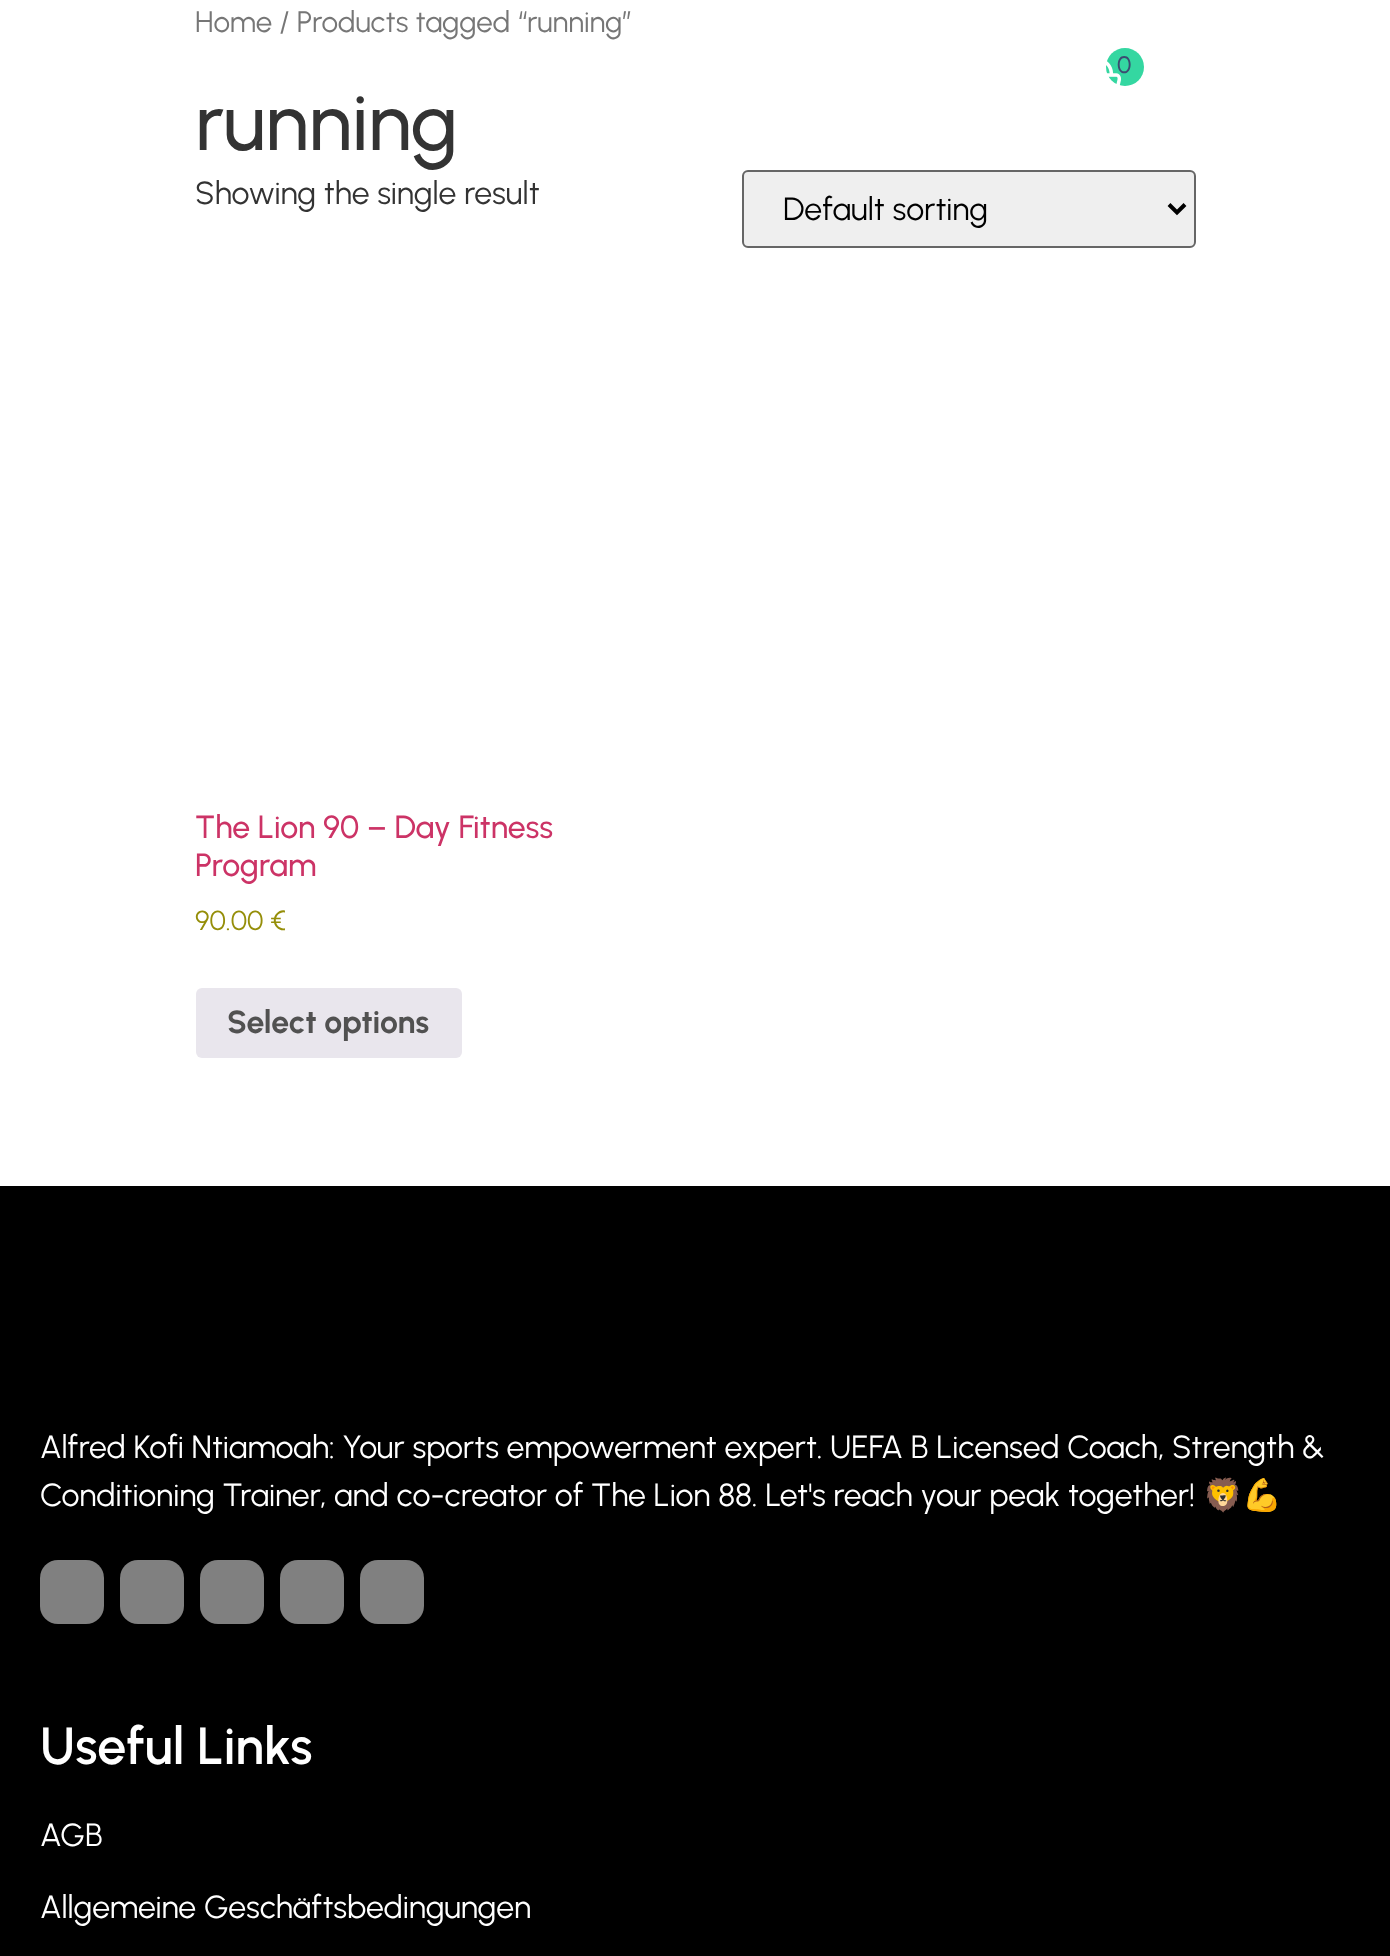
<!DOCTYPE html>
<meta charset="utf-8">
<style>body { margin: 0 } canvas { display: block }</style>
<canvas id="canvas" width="1390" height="1956"></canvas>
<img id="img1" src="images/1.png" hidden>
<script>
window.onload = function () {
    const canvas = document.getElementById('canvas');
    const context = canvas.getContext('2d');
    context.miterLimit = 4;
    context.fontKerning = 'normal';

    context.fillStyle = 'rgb(255, 255, 255)';
    context.fillRect(0, 0, 1390, 1956);
    context.fillStyle = 'rgb(239, 239, 239)';
    context.beginPath();
    context.roundRect(743, 171, 452, 76, 5);
    context.fill();
    context.strokeStyle = 'rgb(102, 102, 102)';
    context.lineWidth = 2;
    context.stroke();
    context.beginPath();
    context.moveTo(1169, 204.5);
    context.lineTo(1177, 212.5);
    context.lineTo(1185, 204.5);
    context.strokeStyle = 'rgb(0, 0, 0)';
    context.lineWidth = 4;
    context.stroke();
    context.fillStyle = 'rgb(233, 230, 237)';
    context.beginPath();
    context.roundRect(196, 988, 266, 70, 6);
    context.fill();
    context.fillStyle = 'rgb(52, 215, 161)';
    context.beginPath();
    context.arc(1125, 67, 19, 0, 2 * Math.PI);
    context.fill();
    context.fillStyle = 'rgb(0, 0, 0)';
    context.fillRect(0, 1186, 1390, 770);
    context.fillStyle = 'rgb(128, 128, 128)';
    context.beginPath();
    context.roundRect(40, 1560, 64, 64, 18);
    context.fill();
    context.beginPath();
    context.roundRect(120, 1560, 64, 64, 18);
    context.fill();
    context.beginPath();
    context.roundRect(200, 1560, 64, 64, 18);
    context.fill();
    context.beginPath();
    context.roundRect(280, 1560, 64, 64, 18);
    context.fill();
    context.beginPath();
    context.roundRect(360, 1560, 64, 64, 18);
    context.fill();
    context.font = '29.5px Urbanist';
    context.fillStyle = 'rgb(118, 118, 118)';
    context.fillText('Home / Products tagged “running”', 195, 32);
    context.font = '500 80px Urbanist';
    context.fillStyle = 'rgb(51, 51, 51)';
    context.fillText('running', 195, 150);
    context.font = '32px Urbanist';
    context.fillText('Showing the single result', 195, 204);
    context.fillStyle = 'rgb(0, 0, 0)';
    context.fillText('Default sorting', 783, 220);
    context.font = '500 32px Urbanist';
    context.fillStyle = 'rgb(204, 51, 102)';
    context.fillText('The Lion 90 – Day Fitness', 195, 838);
    context.fillText('Program', 195, 876);
    context.font = '27.5px Urbanist';
    context.fillStyle = 'rgb(149, 142, 9)';
    context.fillText('90.00 €', 195, 930);
    context.font = 'bold 32px Urbanist';
    context.fillStyle = 'rgb(81, 81, 81)';
    context.fillText('Select options', 227, 1033);
    context.font = '500 24px Urbanist';
    context.fillStyle = 'rgb(60, 75, 113)';
    context.fillText('0', 1117, 73);
    context.drawImage(document.getElementById('img1'), 1106, 61, 15, 25);
    context.font = '32px Urbanist';
    context.fillStyle = 'rgb(255, 255, 255)';
    context.fillText('Alfred Kofi Ntiamoah: Your sports empowerment expert. UEFA B Licensed Coach, Strength &', 40, 1458);
    context.fillText('Conditioning Trainer, and co-creator of The Lion 88. Let\'s reach your peak together!', 40, 1506);
    context.font = '32px Noto Color Emoji';
    context.fillText('🦁💪', 1203, 1506);
    context.font = '600 52px Urbanist';
    context.fillText('Useful Links', 40, 1764);
    context.font = '32px Urbanist';
    context.fillText('AGB', 40, 1846);
    context.fillText('Allgemeine Geschäftsbedingungen', 40, 1918);
};
</script>
